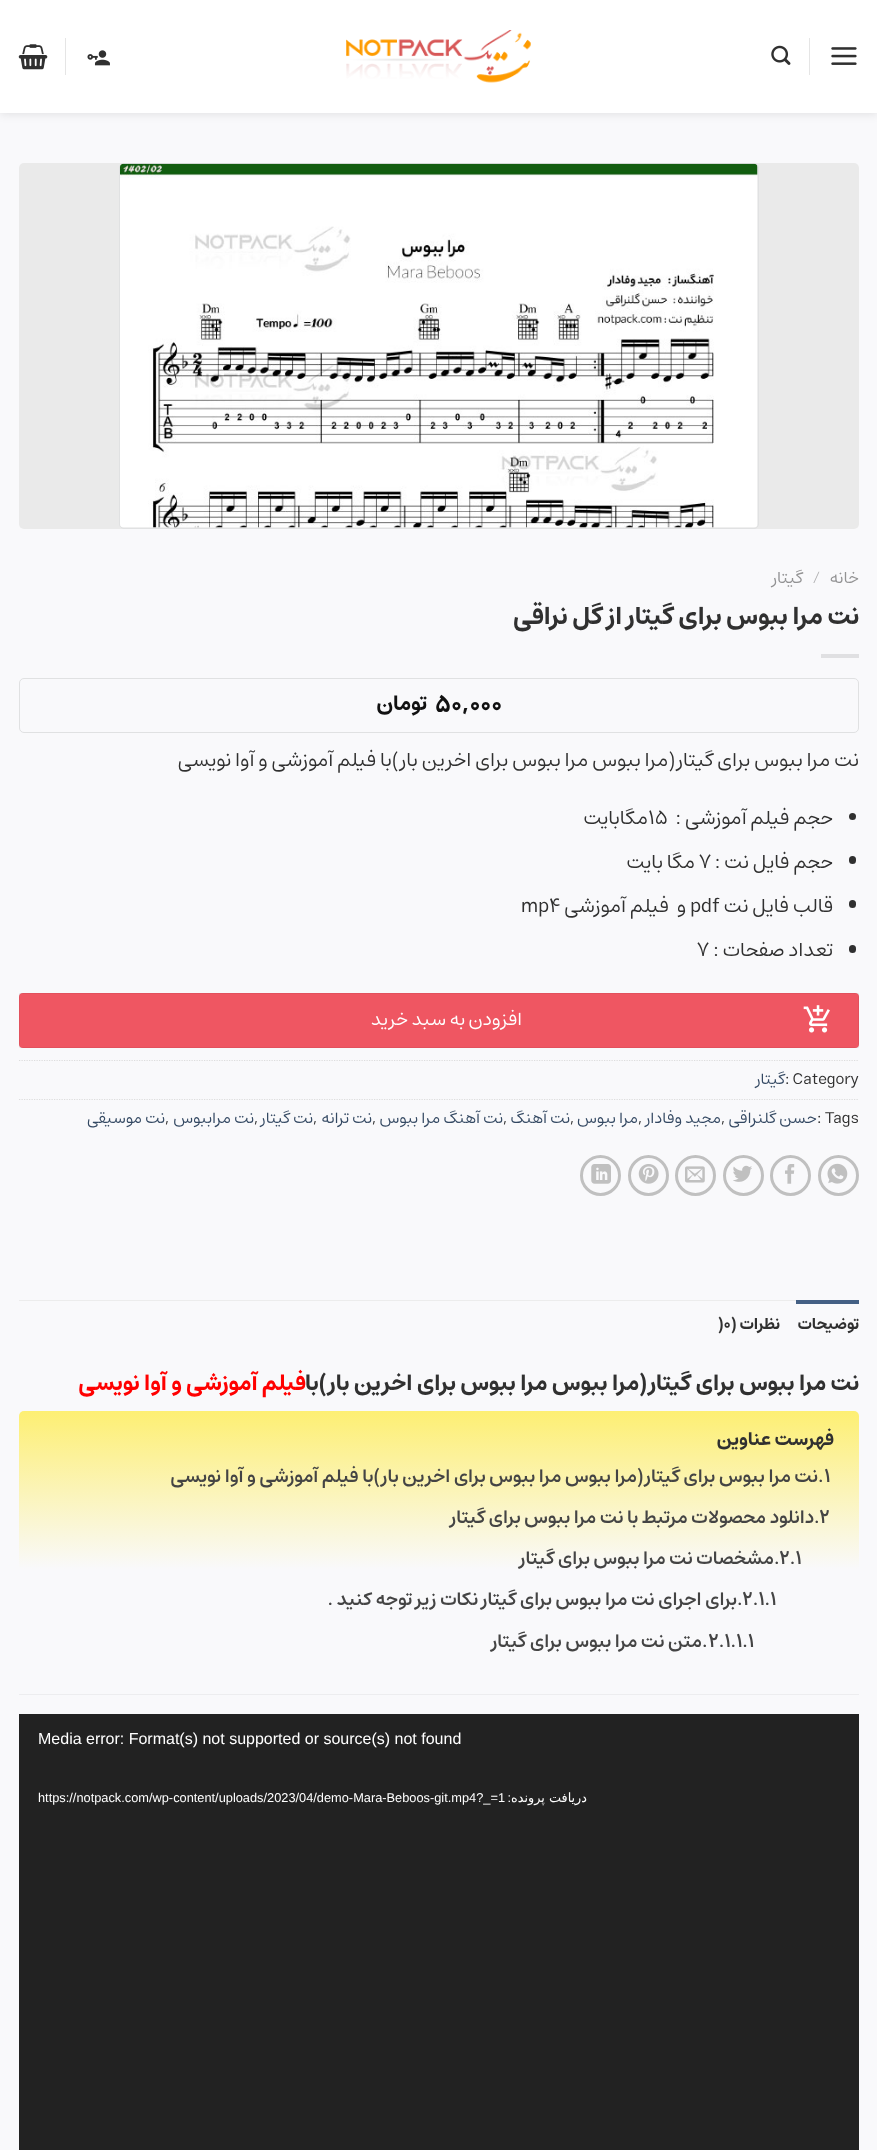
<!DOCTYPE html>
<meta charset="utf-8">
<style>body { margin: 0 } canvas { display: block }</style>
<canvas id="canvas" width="877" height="2150"></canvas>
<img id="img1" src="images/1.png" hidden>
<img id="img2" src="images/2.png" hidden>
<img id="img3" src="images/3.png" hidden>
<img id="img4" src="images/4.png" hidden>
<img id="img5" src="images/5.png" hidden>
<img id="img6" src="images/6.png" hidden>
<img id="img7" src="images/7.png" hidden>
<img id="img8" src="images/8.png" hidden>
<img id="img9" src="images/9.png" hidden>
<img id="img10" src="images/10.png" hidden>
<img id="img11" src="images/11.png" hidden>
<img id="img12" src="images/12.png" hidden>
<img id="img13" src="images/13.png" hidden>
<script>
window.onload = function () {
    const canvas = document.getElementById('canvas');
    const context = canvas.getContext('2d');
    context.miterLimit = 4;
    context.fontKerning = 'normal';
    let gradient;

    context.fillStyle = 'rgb(249, 249, 251)';
    context.fillRect(0, 0, 877, 2150);
    context.save();
    context.beginPath();
    context.moveTo(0, 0);
    context.lineTo(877, 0);
    context.lineTo(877, 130);
    context.lineTo(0, 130);
    context.closePath();
    context.moveTo(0, 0);
    context.lineTo(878, 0);
    context.lineTo(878, 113);
    context.lineTo(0, 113);
    context.closePath();
    context.clip('evenodd');
    context.fillStyle = 'rgba(0, 0, 0, 0.1)';
    context.filter = 'blur(5px)';
    context.beginPath();
    context.rect(0, 1, 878, 113);
    context.fill();
    context.filter = 'none';
    context.restore();
    context.fillStyle = 'rgba(255, 255, 255, 0.9)';
    context.fillRect(0, 0, 877, 113);
    context.drawImage(document.getElementById('img1'), 831, 47, 26, 18);
    context.fillStyle = 'rgb(229, 229, 229)';
    context.fillRect(809, 38, 1, 37);
    context.drawImage(document.getElementById('img2'), 771, 45, 20, 20);
    context.drawImage(document.getElementById('img3'), 346, 30, 185, 53);
    context.drawImage(document.getElementById('img4'), 87, 50, 23, 16);
    context.fillRect(65, 38, 1, 37);
    context.drawImage(document.getElementById('img5'), 18, 44, 30, 26);
    context.fillStyle = 'rgb(234, 234, 234)';
    context.beginPath();
    context.roundRect(19, 163, 840, 366, 5);
    context.fill();
    context.beginPath();
    context.roundRect(119.5, 163.5, 639, 365, 4.5);
    context.strokeStyle = 'rgb(224, 225, 226)';
    context.stroke();
    context.drawImage(document.getElementById('img6'), 120, 163, 638, 365);
    context.fillStyle = 'rgb(224, 224, 226)';
    context.fillRect(821, 654, 38, 4);
    context.beginPath();
    context.roundRect(19.5, 678.5, 839, 54, 4.5);
    context.stroke();
    context.fillStyle = 'rgb(48, 48, 48)';
    context.beginPath();
    context.arc(852.5, 816.5, 3.5, 0, 2 * Math.PI);
    context.fill();
    context.beginPath();
    context.roundRect(849, 856, 7, 8, 3.5);
    context.fill();
    context.beginPath();
    context.roundRect(849, 900, 7, 8, 3.5);
    context.fill();
    context.beginPath();
    context.roundRect(849, 945, 7, 8, 3.5);
    context.fill();
    context.fillStyle = 'rgb(239, 86, 98)';
    context.beginPath();
    context.roundRect(19, 993, 840, 55, 4);
    context.fill();
    context.strokeStyle = 'rgba(0, 0, 0, 0.05)';
    context.strokeRect(19.5, 993.5, 839, 54);
    context.drawImage(document.getElementById('img7'), 803, 1005, 27, 28);
    context.beginPath();
    context.moveTo(19, 1060.5);
    context.lineTo(859, 1060.5);
    context.strokeStyle = 'rgb(221, 221, 221)';
    context.lineWidth = 1.2;
    context.setLineDash([1.25, 1.25]);
    context.stroke();
    context.beginPath();
    context.moveTo(19, 1099.5);
    context.lineTo(859, 1099.5);
    context.stroke();
    context.beginPath();
    context.arc(838.5, 1175.5, 19, 0, 2 * Math.PI);
    context.strokeStyle = 'rgb(192, 192, 192)';
    context.lineWidth = 3;
    context.setLineDash([]);
    context.stroke();
    context.drawImage(document.getElementById('img8'), 827, 1163, 21, 21);
    context.beginPath();
    context.arc(790.5, 1175.5, 19, 0, 2 * Math.PI);
    context.stroke();
    context.drawImage(document.getElementById('img9'), 785, 1164, 10, 20);
    context.beginPath();
    context.arc(743.5, 1175.5, 19, 0, 2 * Math.PI);
    context.stroke();
    context.drawImage(document.getElementById('img10'), 733, 1165, 19, 17);
    context.beginPath();
    context.arc(695.5, 1175.5, 19, 0, 2 * Math.PI);
    context.stroke();
    context.drawImage(document.getElementById('img11'), 685, 1166, 20, 17);
    context.beginPath();
    context.arc(648.5, 1175.5, 19, 0, 2 * Math.PI);
    context.stroke();
    context.drawImage(document.getElementById('img12'), 638, 1164, 21, 20);
    context.beginPath();
    context.arc(600.5, 1175.5, 19, 0, 2 * Math.PI);
    context.stroke();
    context.drawImage(document.getElementById('img13'), 591, 1164, 20, 20);
    context.fillStyle = 'rgb(236, 236, 236)';
    context.fillRect(19, 1300, 777, 1);
    context.fillStyle = 'rgb(68, 96, 132)';
    context.fillRect(796, 1300, 63, 4);
    gradient = context.createLinearGradient(439, 1674, 439, 1346);
    gradient.addColorStop(0.32, 'rgb(249, 249, 251)');
    gradient.addColorStop(1, 'rgb(255, 235, 59)');
    context.fillStyle = gradient;
    context.beginPath();
    context.roundRect(19, 1411, 840, 263, 5);
    context.fill();
    context.fillStyle = 'rgb(237, 237, 239)';
    context.fillRect(19, 1694, 840, 1);
    context.fillStyle = 'rgb(34, 34, 34)';
    context.fillRect(19, 1714, 840, 436);
    context.direction = 'rtl';
    context.font = '17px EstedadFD';
    context.fillStyle = 'rgb(146, 146, 147)';
    context.fillText('خانه', 859, 583);
    context.direction = 'ltr';
    context.font = '300 17px EstedadFD';
    context.fillStyle = 'rgb(174, 174, 175)';
    context.fillText('/', 812, 583);
    context.direction = 'rtl';
    context.font = '17px EstedadFD';
    context.fillStyle = 'rgb(146, 146, 147)';
    context.fillText('گیتار', 803, 583);
    context.font = 'bold 25px EstedadFD';
    context.fillStyle = 'rgb(48, 48, 48)';
    context.fillText('نت مرا ببوس برای گیتار از گل نراقی', 859, 624);
    context.direction = 'ltr';
    context.font = 'bold 24px EstedadFD';
    context.fillStyle = 'rgb(17, 17, 17)';
    context.fillText('۵۰,۰۰۰', 435, 712);
    context.direction = 'rtl';
    context.font = 'bold 21px EstedadFD';
    context.fillText('تومان', 427, 710);
    context.font = '20px EstedadFD';
    context.fillStyle = 'rgb(48, 48, 48)';
    context.fillText('نت مرا ببوس برای گیتار(مرا ببوس مرا ببوس برای اخرین بار)با فیلم آموزشی و آوا نویسی', 859, 766);
    context.fillText('حجم فیلم آموزشی :', 833, 824);
    context.direction = 'ltr';
    context.fillText('۱۵', 648, 824);
    context.direction = 'rtl';
    context.fillText('مگابایت', 648, 824);
    context.fillText('حجم فایل نت :', 833, 868);
    context.direction = 'ltr';
    context.fillText('۷', 699, 868);
    context.direction = 'rtl';
    context.fillText('مگا بایت', 695, 868);
    context.fillText('قالب فایل نت', 833, 912);
    context.direction = 'ltr';
    context.fillText('pdf', 690, 912);
    context.direction = 'rtl';
    context.fillText('و  فیلم آموزشی', 686, 912);
    context.direction = 'ltr';
    context.fillText('mp4', 521, 912);
    context.direction = 'rtl';
    context.fillText('تعداد صفحات :', 833, 956);
    context.direction = 'ltr';
    context.fillText('۷', 697, 956);
    context.letterSpacing = '0.6px';
    context.wordSpacing = '-1px';
    context.direction = 'rtl';
    context.font = '18.75px EstedadFD';
    context.fillStyle = 'rgb(255, 255, 255)';
    context.fillText('افزودن به سبد خرید', 522, 1025);
    context.letterSpacing = '0px';
    context.wordSpacing = '0px';
    context.direction = 'ltr';
    context.font = '16px EstedadFD';
    context.fillStyle = 'rgb(48, 48, 48)';
    context.fillText(': Category', 785, 1084);
    context.direction = 'rtl';
    context.fillStyle = 'rgb(51, 72, 98)';
    context.fillText('گیتار', 785, 1084);
    context.direction = 'ltr';
    context.fillStyle = 'rgb(48, 48, 48)';
    context.fillText(': Tags', 817, 1123);
    context.direction = 'rtl';
    context.fillStyle = 'rgb(51, 72, 98)';
    context.fillText('حسن گلنراقی', 817, 1123);
    context.direction = 'ltr';
    context.fillStyle = 'rgb(48, 48, 48)';
    context.fillText(',', 721, 1123);
    context.direction = 'rtl';
    context.fillStyle = 'rgb(51, 72, 98)';
    context.fillText('مجید وفادار', 721, 1123);
    context.direction = 'ltr';
    context.fillStyle = 'rgb(48, 48, 48)';
    context.fillText(',', 638, 1123);
    context.direction = 'rtl';
    context.fillStyle = 'rgb(51, 72, 98)';
    context.fillText('مرا ببوس', 638, 1123);
    context.direction = 'ltr';
    context.fillStyle = 'rgb(48, 48, 48)';
    context.fillText(',', 570, 1123);
    context.direction = 'rtl';
    context.fillStyle = 'rgb(51, 72, 98)';
    context.fillText('نت آهنگ', 570, 1123);
    context.direction = 'ltr';
    context.fillStyle = 'rgb(48, 48, 48)';
    context.fillText(',', 503, 1123);
    context.direction = 'rtl';
    context.fillStyle = 'rgb(51, 72, 98)';
    context.fillText('نت آهنگ مرا ببوس', 503, 1123);
    context.direction = 'ltr';
    context.fillStyle = 'rgb(48, 48, 48)';
    context.fillText(',', 372, 1123);
    context.direction = 'rtl';
    context.fillStyle = 'rgb(51, 72, 98)';
    context.fillText('نت ترانه', 372, 1123);
    context.direction = 'ltr';
    context.fillStyle = 'rgb(48, 48, 48)';
    context.fillText(',', 313, 1123);
    context.direction = 'rtl';
    context.fillStyle = 'rgb(51, 72, 98)';
    context.fillText('نت گیتار', 313, 1123);
    context.direction = 'ltr';
    context.fillStyle = 'rgb(48, 48, 48)';
    context.fillText(',', 254, 1123);
    context.direction = 'rtl';
    context.fillStyle = 'rgb(51, 72, 98)';
    context.fillText('نت مراببوس', 254, 1123);
    context.direction = 'ltr';
    context.fillStyle = 'rgb(48, 48, 48)';
    context.fillText(',', 165, 1123);
    context.direction = 'rtl';
    context.fillStyle = 'rgb(51, 72, 98)';
    context.fillText('نت موسیقی', 165, 1123);
    context.font = 'bold 16px EstedadFD';
    context.fillStyle = 'rgb(48, 48, 48)';
    context.fillText('توضیحات', 859, 1329);
    context.fillText('نظرات (', 780, 1329);
    context.direction = 'ltr';
    context.fillText(')0', 718, 1329);
    context.wordSpacing = '0.25px';
    context.direction = 'rtl';
    context.font = 'bold 22.5px EstedadFD';
    context.fillText('نت مرا ببوس برای گیتار(مرا ببوس مرا ببوس برای اخرین بار)با', 859, 1390);
    context.wordSpacing = '0px';
    context.fillStyle = 'rgb(255, 0, 0)';
    context.fillText('فیلم آموزشی و آوا نویسی', 306, 1390);
    context.font = 'bold 18.75px EstedadFD';
    context.fillStyle = 'rgb(48, 48, 48)';
    context.fillText('فهرست عناوین', 834, 1445);
    context.direction = 'ltr';
    context.font = '600 18.75px EstedadFD';
    context.fillStyle = 'rgb(68, 68, 68)';
    context.fillText('1', 824, 1482);
    context.fillText('.', 818, 1482);
    context.direction = 'rtl';
    context.fillText('نت مرا ببوس برای گیتار(مرا ببوس مرا ببوس برای اخرین بار)با فیلم آموزشی و آوا نویسی', 818, 1482);
    context.direction = 'ltr';
    context.fillText('2', 819, 1523);
    context.fillText('.', 814, 1523);
    context.direction = 'rtl';
    context.fillText('دانلود محصولات مرتبط با نت مرا ببوس برای گیتار', 814, 1523);
    context.direction = 'ltr';
    context.fillText('2.1', 779, 1564);
    context.fillText('.', 774, 1564);
    context.direction = 'rtl';
    context.fillText('مشخصات نت مرا ببوس برای گیتار', 774, 1564);
    context.direction = 'ltr';
    context.fillText('2.1.1', 742, 1605);
    context.fillText('.', 737, 1605);
    context.direction = 'rtl';
    context.fillText('برای اجرای نت مرا ببوس برای گیتار نکات زیر توجه کنید .', 737, 1605);
    context.direction = 'ltr';
    context.fillText('2.1.1.1', 708, 1647);
    context.fillText('.', 702, 1647);
    context.direction = 'rtl';
    context.fillText('متن نت مرا ببوس برای گیتار', 702, 1647);
    context.direction = 'ltr';
    context.font = '16px Liberation Sans';
    context.fillStyle = 'rgb(255, 255, 255)';
    context.fillText('Media error: Format(s) not supported or source(s) not found', 38, 1744);
    context.direction = 'rtl';
    context.font = '12.8px DejaVu Sans';
    context.fillText('دریافت پرونده', 587, 1802);
    context.font = '12.8px Liberation Sans';
    context.fillText(':', 511, 1802);
    context.direction = 'ltr';
    context.fillText('https://notpack.com/wp-content/uploads/2023/04/demo-Mara-Beboos-git.mp4?_=1', 38, 1802);
};
</script>
